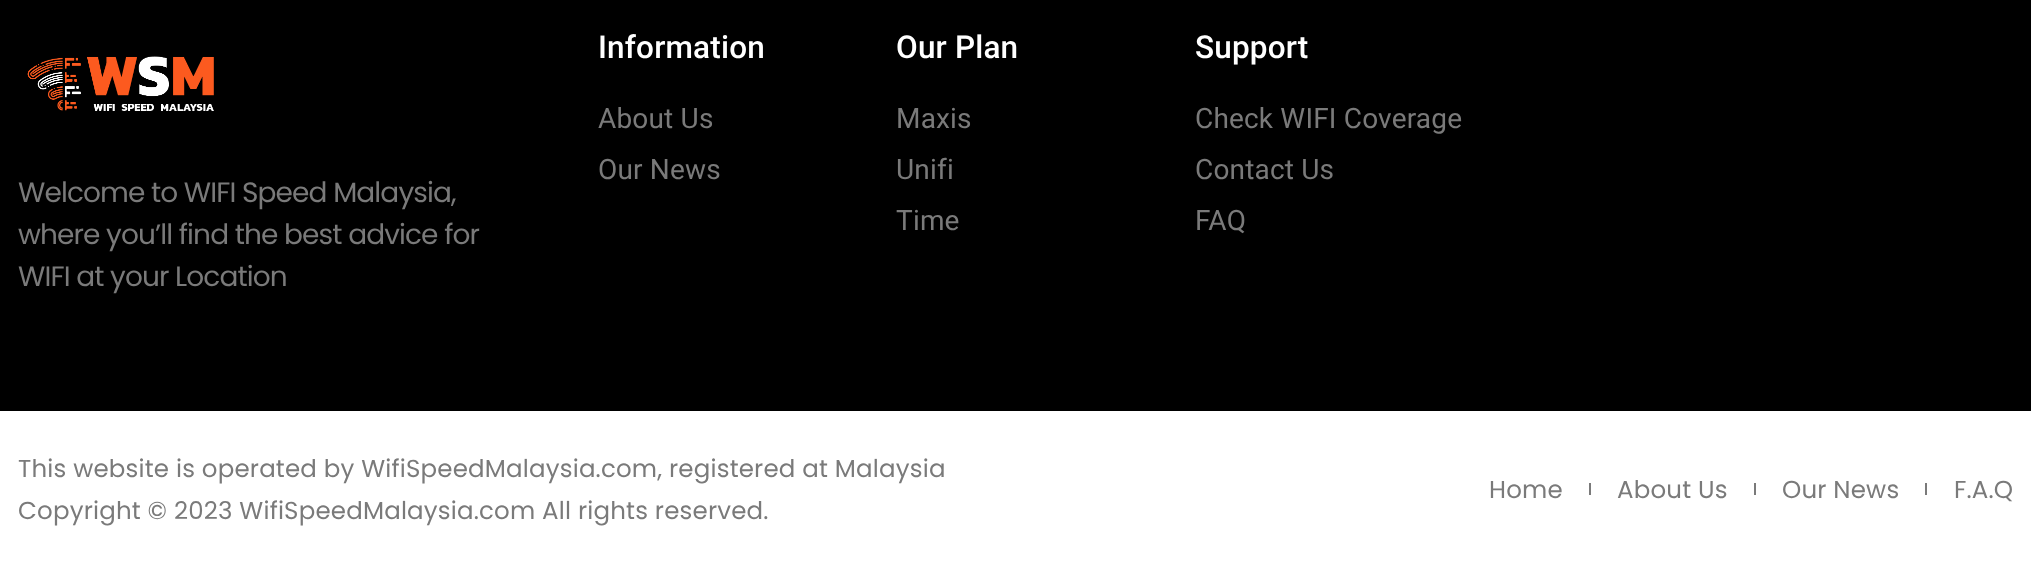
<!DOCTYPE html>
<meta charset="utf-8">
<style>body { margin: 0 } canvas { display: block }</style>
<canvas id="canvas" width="2031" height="584"></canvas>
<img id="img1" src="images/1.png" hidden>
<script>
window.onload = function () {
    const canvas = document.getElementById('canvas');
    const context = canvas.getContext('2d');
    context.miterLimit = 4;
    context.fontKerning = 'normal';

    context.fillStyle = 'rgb(255, 255, 255)';
    context.fillRect(0, 0, 2031, 584);
    context.fillStyle = 'rgb(0, 0, 0)';
    context.fillRect(0, 0, 2031, 411);
    context.drawImage(document.getElementById('img1'), 27, 56, 187, 55);
    context.fillStyle = 'rgb(122, 122, 122)';
    context.fillRect(1589, 483, 2, 12);
    context.fillRect(1754, 483, 2, 12);
    context.fillRect(1925, 483, 2, 12);
    context.letterSpacing = '-0.9px';
    context.font = '28px Poppins';
    context.fillText('Welcome to WIFI Speed Malaysia,', 18, 202);
    context.fillText('where you’ll find the best advice for', 18, 244);
    context.fillText('WIFI at your Location', 18, 286);
    context.letterSpacing = '0.18px';
    context.font = '500 31.5px Roboto';
    context.fillStyle = 'rgb(255, 255, 255)';
    context.fillText('Information', 598, 58);
    context.font = '28px Roboto';
    context.fillStyle = 'rgb(122, 122, 122)';
    context.fillText('About Us', 598, 128);
    context.fillText('Our News', 598, 179);
    context.font = '500 31.5px Roboto';
    context.fillStyle = 'rgb(255, 255, 255)';
    context.fillText('Our Plan', 896, 58);
    context.font = '28px Roboto';
    context.fillStyle = 'rgb(122, 122, 122)';
    context.fillText('Maxis', 896, 128);
    context.fillText('Unifi', 896, 179);
    context.fillText('Time', 896, 230);
    context.font = '500 31.5px Roboto';
    context.fillStyle = 'rgb(255, 255, 255)';
    context.fillText('Support', 1195, 58);
    context.font = '28px Roboto';
    context.fillStyle = 'rgb(122, 122, 122)';
    context.fillText('Check WIFI Coverage', 1195, 128);
    context.fillText('Contact Us', 1195, 179);
    context.fillText('FAQ', 1195, 230);
    context.font = '24.5px Poppins';
    context.fillText('This website is operated by WifiSpeedMalaysia.com, registered at Malaysia', 18, 477);
    context.fillText('Copyright © 2023 WifiSpeedMalaysia.com All rights reserved.', 18, 519);
    context.fillText('Home', 1489, 498);
    context.fillText('About Us', 1617, 498);
    context.fillText('Our News', 1782, 498);
    context.fillText('F.A.Q', 1954, 498);
};
</script>
